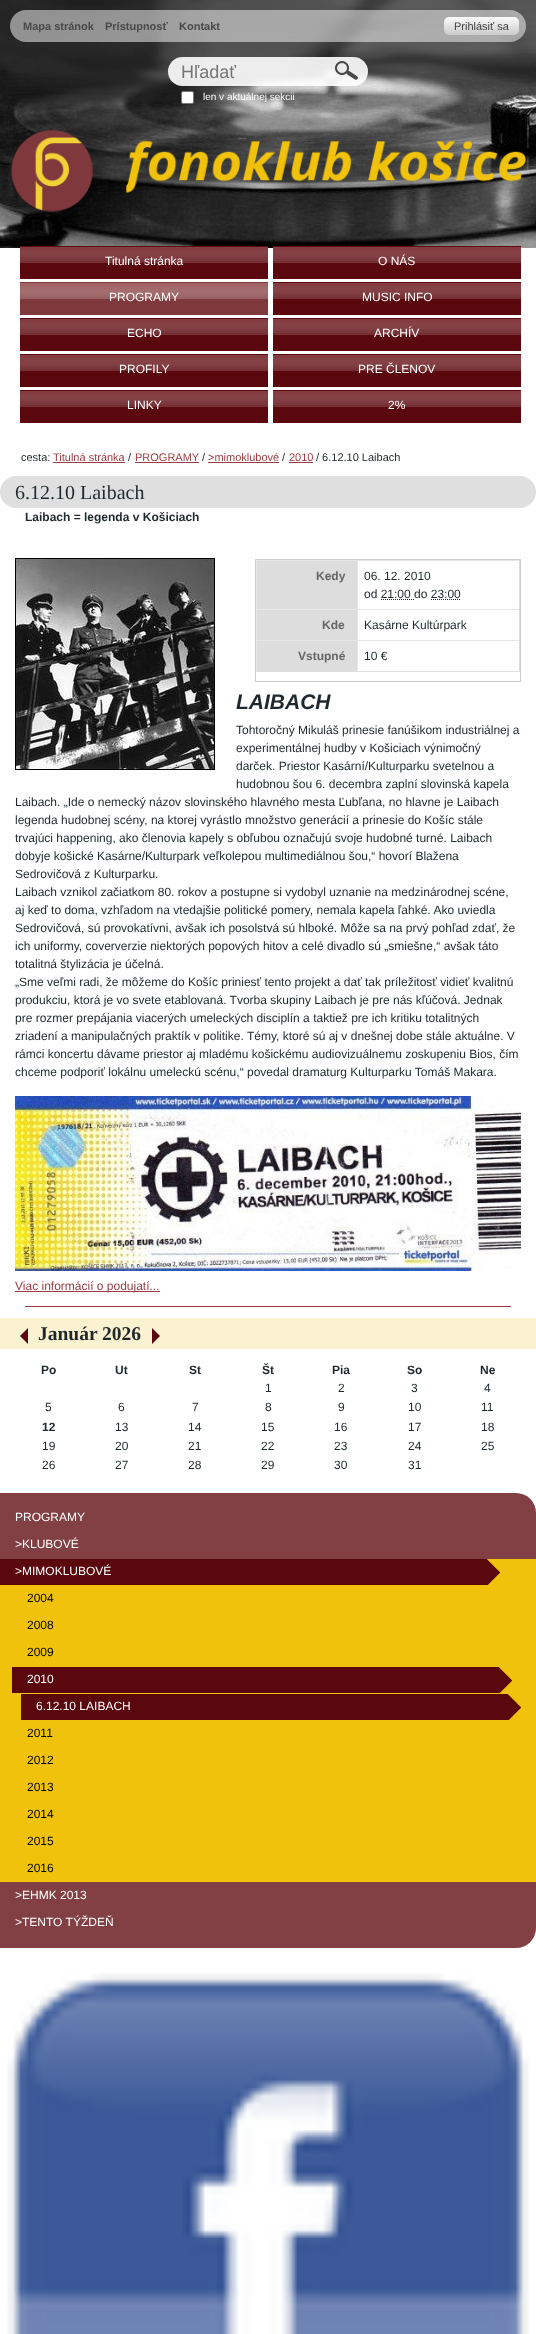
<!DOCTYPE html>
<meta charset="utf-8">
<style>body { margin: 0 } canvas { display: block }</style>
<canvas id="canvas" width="536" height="2334"></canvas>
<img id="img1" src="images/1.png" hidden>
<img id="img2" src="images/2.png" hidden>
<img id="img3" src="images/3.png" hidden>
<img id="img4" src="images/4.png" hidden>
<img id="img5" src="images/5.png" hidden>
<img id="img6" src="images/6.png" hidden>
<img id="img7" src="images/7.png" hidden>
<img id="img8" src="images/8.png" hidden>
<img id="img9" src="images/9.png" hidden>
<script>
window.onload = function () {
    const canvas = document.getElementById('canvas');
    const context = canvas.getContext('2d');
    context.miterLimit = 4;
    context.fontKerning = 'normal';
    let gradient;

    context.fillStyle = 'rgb(255, 255, 255)';
    context.fillRect(0, 0, 536, 2334);
    context.drawImage(document.getElementById('img1'), 0, 0, 536, 248);
    context.fillStyle = 'rgba(255, 255, 255, 0.5)';
    context.beginPath();
    context.roundRect(10, 10, 516, 32, 16);
    context.fill();
    gradient = context.createLinearGradient(482, 17, 482, 35);
    gradient.addColorStop(0, 'rgb(251, 251, 251)');
    gradient.addColorStop(1, 'rgb(203, 203, 203)');
    context.fillStyle = gradient;
    context.beginPath();
    context.roundRect(444, 17, 75, 18, 5);
    context.fill();
    context.fillStyle = 'rgba(255, 255, 255, 0.9)';
    context.beginPath();
    context.roundRect(168, 57, 200, 29, 14.5);
    context.fill();
    context.drawImage(document.getElementById('img2'), 335, 61, 23, 19);
    context.fillStyle = 'rgb(255, 255, 255)';
    context.beginPath();
    context.roundRect(181.5, 91.5, 12, 12, 1.5);
    context.fill();
    context.strokeStyle = 'rgb(118, 118, 118)';
    context.stroke();
    context.drawImage(document.getElementById('img3'), 11, 130, 515, 82);
    context.drawImage(document.getElementById('img4'), 20, 246, 248, 33);
    context.drawImage(document.getElementById('img4'), 273, 246, 248, 33);
    context.fillStyle = 'rgb(127, 56, 60)';
    context.fillRect(20, 282, 248, 33);
    context.drawImage(document.getElementById('img5'), 20, 283, 248, 16);
    context.drawImage(document.getElementById('img4'), 273, 282, 248, 33);
    context.drawImage(document.getElementById('img4'), 20, 318, 248, 33);
    context.drawImage(document.getElementById('img4'), 273, 318, 248, 33);
    context.drawImage(document.getElementById('img4'), 20, 354, 248, 33);
    context.drawImage(document.getElementById('img4'), 273, 354, 248, 33);
    context.drawImage(document.getElementById('img4'), 20, 390, 248, 33);
    context.drawImage(document.getElementById('img4'), 273, 390, 248, 33);
    context.fillStyle = 'rgb(154, 61, 66)';
    context.fillRect(53, 462, 72, 1);
    context.fillRect(135, 462, 64, 1);
    context.fillRect(208, 462, 71, 1);
    context.fillRect(289, 462, 24, 1);
    context.fillStyle = 'rgb(223, 223, 223)';
    context.beginPath();
    context.roundRect(0, 476, 536, 32, 16);
    context.fill();
    context.strokeStyle = 'rgb(204, 204, 204)';
    context.strokeRect(255.5, 559.5, 265, 122);
    context.fillStyle = 'rgb(221, 221, 221)';
    context.fillRect(256, 671, 264, 1);
    context.fillRect(257, 561, 100, 48);
    context.fillStyle = 'rgb(231, 231, 231)';
    context.fillRect(256, 560, 264, 1);
    context.fillRect(256, 609, 264, 1);
    context.fillRect(256, 640, 264, 1);
    context.fillRect(357, 640, 1, 32);
    context.fillRect(357, 609, 1, 32);
    context.fillRect(357, 560, 1, 50);
    context.fillRect(256, 640, 1, 32);
    context.fillRect(256, 609, 1, 32);
    context.fillRect(256, 560, 1, 50);
    context.fillStyle = 'rgb(221, 221, 221)';
    context.fillRect(519, 640, 1, 32);
    context.fillRect(519, 609, 1, 32);
    context.fillRect(519, 560, 1, 50);
    context.beginPath();
    context.moveTo(381, 599.5);
    context.lineTo(411, 599.5);
    context.strokeStyle = 'rgb(31, 40, 44)';
    context.setLineDash([1, 1]);
    context.stroke();
    context.beginPath();
    context.moveTo(411, 599.5);
    context.lineTo(412, 599.5);
    context.moveTo(413, 599.5);
    context.lineTo(414, 599.5);
    context.setLineDash([]);
    context.stroke();
    context.beginPath();
    context.moveTo(431, 599.5);
    context.lineTo(461, 599.5);
    context.setLineDash([1, 1]);
    context.stroke();
    context.fillRect(257, 610, 100, 30);
    context.fillRect(257, 641, 100, 30);
    context.drawImage(document.getElementById('img6'), 15, 558, 200, 212);
    context.drawImage(document.getElementById('img7'), 15, 1096, 506, 175);
    context.fillStyle = 'rgb(154, 61, 66)';
    context.fillRect(15, 1291, 145, 1);
    context.fillRect(25, 1306, 486, 1);
    context.fillStyle = 'rgb(251, 242, 209)';
    context.fillRect(0, 1318, 536, 31);
    context.fillStyle = 'rgb(90, 8, 13)';
    context.beginPath();
    context.moveTo(28, 1328);
    context.lineTo(28, 1344);
    context.lineTo(20, 1336);
    context.closePath();
    context.fill();
    context.beginPath();
    context.moveTo(152, 1344);
    context.lineTo(152, 1328);
    context.lineTo(160, 1336);
    context.closePath();
    context.fill();
    context.fillStyle = 'rgb(130, 64, 68)';
    context.beginPath();
    context.roundRect(0, 1493, 536, 455, [0, 20, 20, 0]);
    context.fill();
    context.fillStyle = 'rgb(240, 194, 11)';
    context.fillRect(0, 1559, 536, 323);
    context.drawImage(document.getElementById('img8'), 0, 1559, 500, 26);
    context.drawImage(document.getElementById('img8'), 12, 1667, 500, 26);
    context.drawImage(document.getElementById('img8'), 21, 1694, 500, 26);
    context.drawImage(document.getElementById('img9'), 7, 1973, 522, 361);
    context.font = 'bold 11px Liberation Sans';
    context.fillStyle = 'rgb(74, 73, 73)';
    context.fillText('Mapa stránok', 23, 30);
    context.fillText('Prístupnosť', 105, 30);
    context.fillText('Kontakt', 179, 30);
    context.font = '11px Liberation Sans';
    context.fillStyle = 'rgb(66, 66, 66)';
    context.fillText('Prihlásiť sa', 454, 30);
    context.font = '18px Liberation Sans';
    context.fillStyle = 'rgb(117, 117, 117)';
    context.fillText('Hľadať', 181, 78);
    context.font = '10px Liberation Sans';
    context.fillStyle = 'rgb(255, 255, 255)';
    context.fillText('len v aktuálnej sekcii', 203, 100);
    context.font = '12px Liberation Sans';
    context.fillText('Titulná stránka', 105, 265);
    context.fillText('O NÁS', 378, 265);
    context.fillText('PROGRAMY', 109, 301);
    context.fillText('MUSIC INFO', 362, 301);
    context.fillText('ECHO', 127, 337);
    context.fillText('ARCHÍV', 374, 337);
    context.fillText('PROFILY', 119, 373);
    context.fillText('PRE ČLENOV', 358, 373);
    context.fillText('LINKY', 127, 409);
    context.fillText('2%', 388, 409);
    context.font = '11px Liberation Sans';
    context.fillStyle = 'rgb(31, 40, 44)';
    context.fillText('cesta:', 21, 461);
    context.fillStyle = 'rgb(154, 61, 66)';
    context.fillText('Titulná stránka', 53, 461);
    context.fillStyle = 'rgb(31, 40, 44)';
    context.fillText('/', 128, 461);
    context.fillStyle = 'rgb(154, 61, 66)';
    context.fillText('PROGRAMY', 135, 461);
    context.fillStyle = 'rgb(31, 40, 44)';
    context.fillText('/', 202, 461);
    context.fillStyle = 'rgb(154, 61, 66)';
    context.fillText('>mimoklubové', 208, 461);
    context.fillStyle = 'rgb(31, 40, 44)';
    context.fillText('/', 282, 461);
    context.fillStyle = 'rgb(154, 61, 66)';
    context.fillText('2010', 289, 461);
    context.fillStyle = 'rgb(31, 40, 44)';
    context.fillText('/ 6.12.10 Laibach', 316, 461);
    context.font = '20px Liberation Serif';
    context.fillText('6.12.10 Laibach', 15, 499);
    context.font = 'bold 12px Liberation Sans';
    context.fillText('Laibach = legenda v Košiciach', 25, 521);
    context.fillStyle = 'rgb(102, 102, 102)';
    context.fillText('Kedy', 316, 580);
    context.font = '12px Liberation Sans';
    context.fillStyle = 'rgb(31, 40, 44)';
    context.fillText('06. 12. 2010', 364, 580);
    context.fillText('od 21:00 do 23:00', 364, 598);
    context.font = 'bold 12px Liberation Sans';
    context.fillStyle = 'rgb(102, 102, 102)';
    context.fillText('Kde', 322, 629);
    context.font = '12px Liberation Sans';
    context.fillStyle = 'rgb(31, 40, 44)';
    context.fillText('Kasárne Kultúrpark', 364, 629);
    context.font = 'bold 12px Liberation Sans';
    context.fillStyle = 'rgb(102, 102, 102)';
    context.fillText('Vstupné', 298, 660);
    context.font = '12px Liberation Sans';
    context.fillStyle = 'rgb(31, 40, 44)';
    context.fillText('10 €', 364, 660);
    context.font = 'italic bold 21px Liberation Sans';
    context.fillText('LAIBACH', 236, 709);
    context.font = '12px Liberation Sans';
    context.fillText('Tohtoročný Mikuláš prinesie fanúšikom industriálnej a', 236, 734);
    context.fillText('experimentálnej hudby v Košiciach výnimočný', 236, 752);
    context.fillText('darček. Priestor Kasární/Kulturparku svetelnou a', 236, 770);
    context.fillText('hudobnou šou 6. decembra zaplní slovinská kapela', 236, 788);
    context.fillText('Laibach. „Ide o nemecký názov slovinského hlavného mesta Ľubľana, no hlavne je Laibach', 15, 806);
    context.fillText('legenda hudobnej scény, na ktorej vyrástlo množstvo generácií a prinesie do Košíc stále', 15, 824);
    context.fillText('trvajúci happening, ako členovia kapely s obľubou označujú svoje hudobné turné. Laibach', 15, 842);
    context.fillText('dobyje košické Kasárne/Kulturpark veľkolepou multimediálnou šou,“ hovorí Blažena', 15, 860);
    context.fillText('Sedrovičová z Kulturparku.', 15, 878);
    context.fillText('Laibach vznikol začiatkom 80. rokov a postupne si vydobyl uznanie na medzinárodnej scéne,', 15, 896);
    context.fillText('aj keď to doma, vzhľadom na vtedajšie politické pomery, nemala kapela ľahké. Ako uviedla', 15, 914);
    context.fillText('Sedrovičová, sú provokatívni, avšak ich posolstvá sú hlboké. Môže sa na prvý pohľad zdať, že', 15, 932);
    context.fillText('ich uniformy, coververzie niektorých popových hitov a celé divadlo sú „smiešne,“ avšak táto', 15, 950);
    context.fillText('totalitná štylizácia je účelná.', 15, 968);
    context.fillText('„Sme veľmi radi, že môžeme do Košíc priniesť tento projekt a dať tak príležitosť vidieť kvalitnú', 15, 986);
    context.fillText('produkciu, ktorá je vo svete etablovaná. Tvorba skupiny Laibach je pre nás kľúčová. Jednak', 15, 1004);
    context.fillText('pre rozmer prepájania viacerých umeleckých disciplín a taktiež pre ich kritiku totalitných', 15, 1022);
    context.fillText('zriadení a manipulačných praktík v politike. Témy, ktoré sú aj v dnešnej dobe stále aktuálne. V', 15, 1040);
    context.fillText('rámci koncertu dávame priestor aj mladému košickému audiovizuálnemu zoskupeniu Bios, čím', 15, 1058);
    context.fillText('chceme podporiť lokálnu umeleckú scénu,“ povedal dramaturg Kulturparku Tomáš Makara.', 15, 1076);
    context.fillStyle = 'rgb(154, 61, 66)';
    context.fillText('Viac informácií o podujatí...', 15, 1290);
    context.font = 'bold 19.5px Liberation Serif';
    context.fillStyle = 'rgb(31, 40, 44)';
    context.fillText('Január 2026', 38, 1340);
    context.font = 'bold 12px Liberation Sans';
    context.fillText('Po', 41, 1374);
    context.fillText('Ut', 115, 1374);
    context.fillText('St', 189, 1374);
    context.fillText('Št', 262, 1374);
    context.fillText('Pia', 332, 1374);
    context.fillText('So', 407, 1374);
    context.fillText('Ne', 480, 1374);
    context.font = '12px Liberation Sans';
    context.fillText('1', 265, 1392);
    context.fillText('2', 338, 1392);
    context.fillText('3', 411, 1392);
    context.fillText('4', 484, 1392);
    context.fillText('5', 45, 1411);
    context.fillText('6', 118, 1411);
    context.fillText('7', 192, 1411);
    context.fillText('8', 265, 1411);
    context.fillText('9', 338, 1411);
    context.fillText('10', 408, 1411);
    context.fillText('11', 481, 1411);
    context.font = 'bold 12px Liberation Sans';
    context.fillText('12', 42, 1431);
    context.font = '12px Liberation Sans';
    context.fillText('13', 115, 1431);
    context.fillText('14', 188, 1431);
    context.fillText('15', 261, 1431);
    context.fillText('16', 334, 1431);
    context.fillText('17', 408, 1431);
    context.fillText('18', 481, 1431);
    context.fillText('19', 42, 1450);
    context.fillText('20', 115, 1450);
    context.fillText('21', 188, 1450);
    context.fillText('22', 261, 1450);
    context.fillText('23', 334, 1450);
    context.fillText('24', 408, 1450);
    context.fillText('25', 481, 1450);
    context.fillText('26', 42, 1469);
    context.fillText('27', 115, 1469);
    context.fillText('28', 188, 1469);
    context.fillText('29', 261, 1469);
    context.fillText('30', 334, 1469);
    context.fillText('31', 408, 1469);
    context.fillStyle = 'rgb(255, 255, 255)';
    context.fillText('PROGRAMY', 15, 1521);
    context.fillText('>KLUBOVÉ', 15, 1548);
    context.fillText('>MIMOKLUBOVÉ', 15, 1575);
    context.fillStyle = 'rgb(0, 0, 0)';
    context.fillText('2004', 27, 1602);
    context.fillText('2008', 27, 1629);
    context.fillText('2009', 27, 1656);
    context.fillStyle = 'rgb(255, 255, 255)';
    context.fillText('2010', 27, 1683);
    context.fillText('6.12.10 LAIBACH', 36, 1710);
    context.fillStyle = 'rgb(0, 0, 0)';
    context.fillText('2011', 27, 1737);
    context.fillText('2012', 27, 1764);
    context.fillText('2013', 27, 1791);
    context.fillText('2014', 27, 1818);
    context.fillText('2015', 27, 1845);
    context.fillText('2016', 27, 1872);
    context.fillStyle = 'rgb(255, 255, 255)';
    context.fillText('>EHMK 2013', 15, 1899);
    context.fillText('>TENTO TÝŽDEŇ', 15, 1926);
};
</script>
